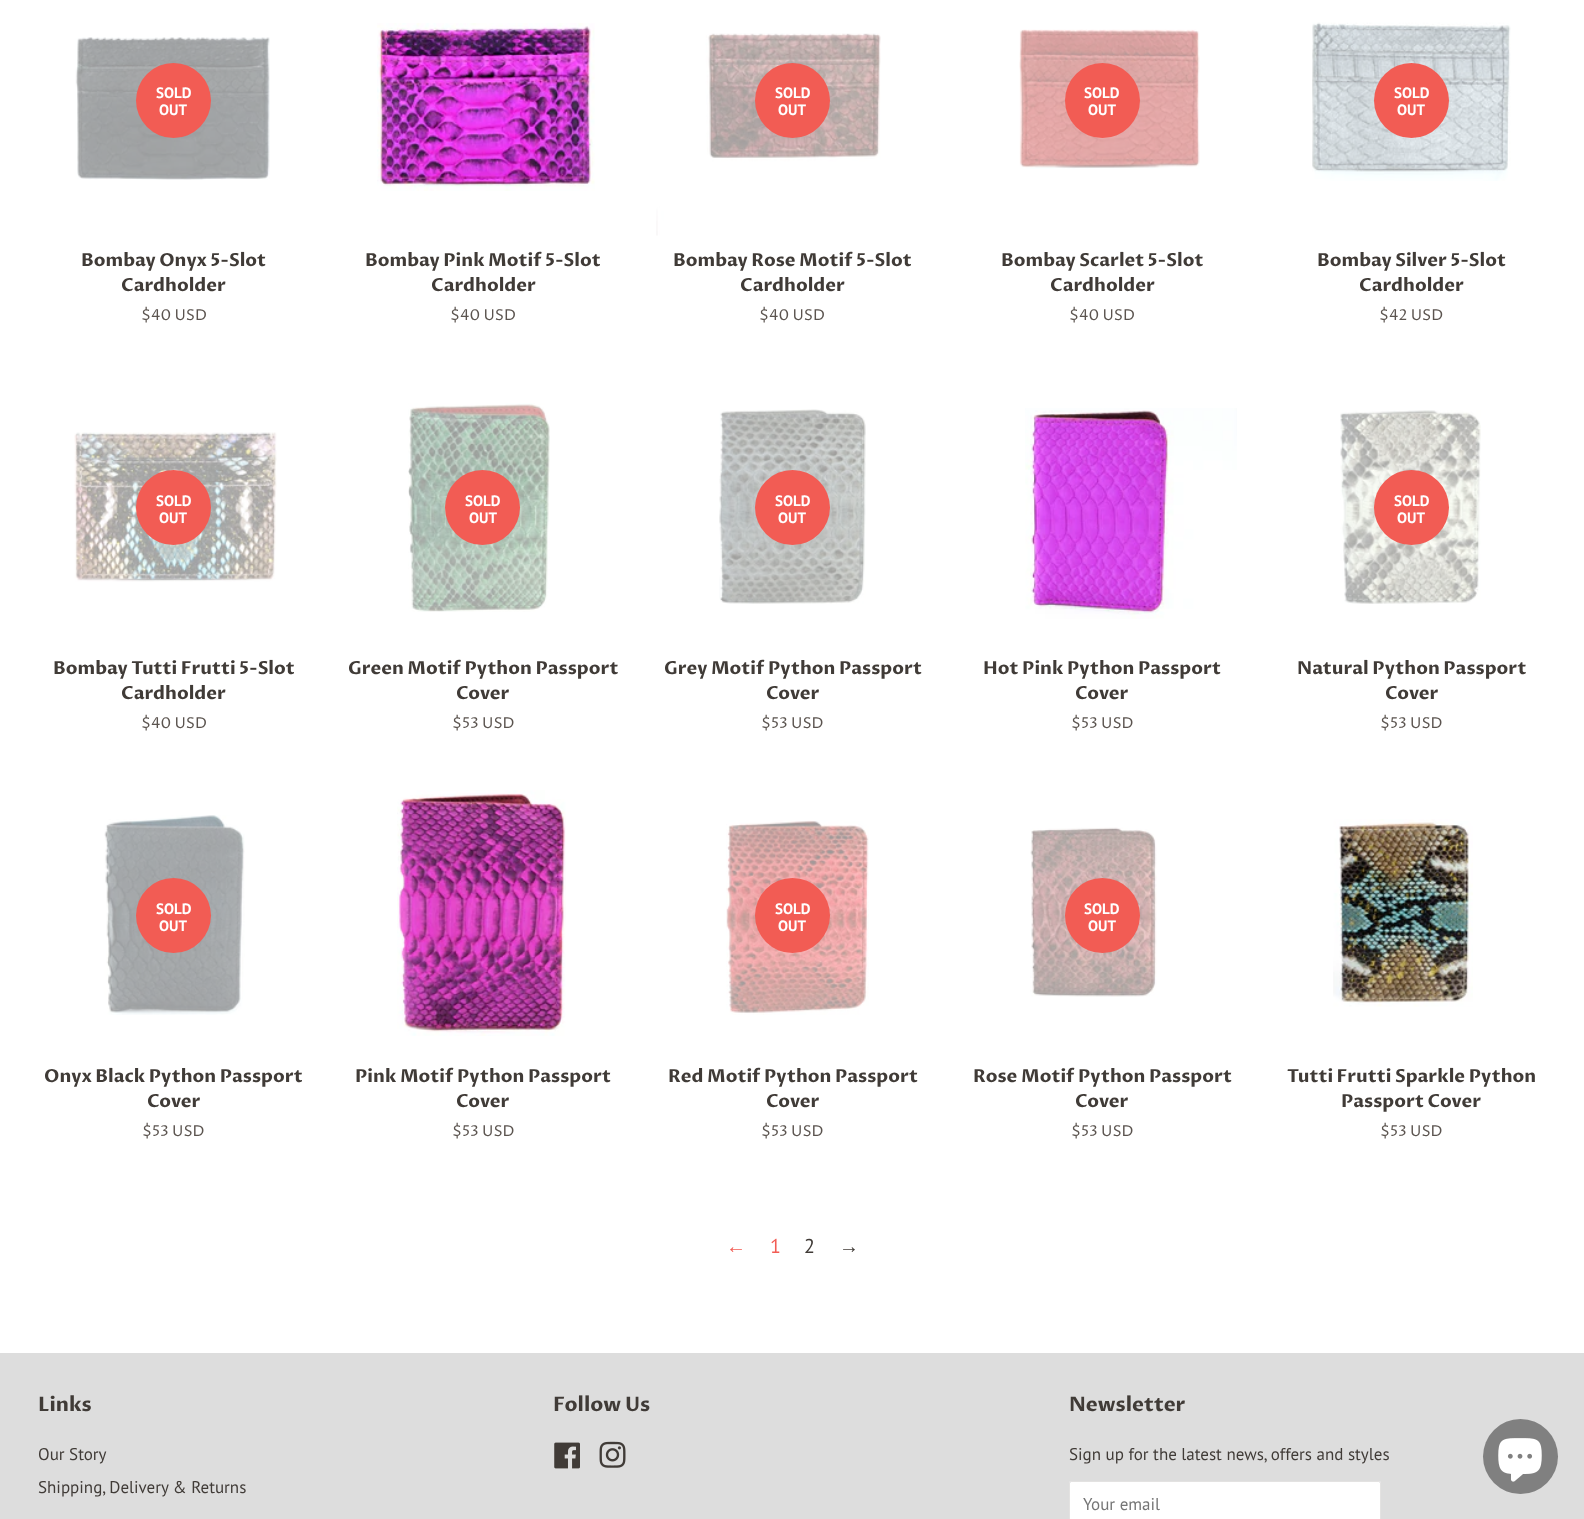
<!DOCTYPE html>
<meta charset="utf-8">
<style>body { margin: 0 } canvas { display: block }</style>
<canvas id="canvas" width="1584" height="1519"></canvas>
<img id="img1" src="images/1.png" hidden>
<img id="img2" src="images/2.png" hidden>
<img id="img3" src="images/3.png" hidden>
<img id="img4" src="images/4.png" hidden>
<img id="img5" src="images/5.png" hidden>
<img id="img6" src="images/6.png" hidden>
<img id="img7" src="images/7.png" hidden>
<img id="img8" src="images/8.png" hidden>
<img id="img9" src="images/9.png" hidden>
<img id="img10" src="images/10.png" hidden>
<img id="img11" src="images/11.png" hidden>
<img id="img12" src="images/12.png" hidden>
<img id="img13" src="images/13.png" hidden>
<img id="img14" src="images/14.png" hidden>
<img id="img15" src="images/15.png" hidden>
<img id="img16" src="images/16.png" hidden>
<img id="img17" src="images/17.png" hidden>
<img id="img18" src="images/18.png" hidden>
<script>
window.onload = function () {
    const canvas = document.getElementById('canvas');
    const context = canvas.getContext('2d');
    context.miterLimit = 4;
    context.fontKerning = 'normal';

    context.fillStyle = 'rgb(255, 255, 255)';
    context.fillRect(0, 0, 1584, 1519);
    context.drawImage(document.getElementById('img1'), 75, 37, 195, 143);
    context.fillStyle = 'rgb(242, 92, 84)';
    context.beginPath();
    context.arc(173.5, 100.5, 37.5, 0, 2 * Math.PI);
    context.fill();
    context.drawImage(document.getElementById('img2'), 377, 23, 218, 168);
    context.drawImage(document.getElementById('img3'), 656, 33, 225, 203);
    context.beginPath();
    context.arc(792.5, 100.5, 37.5, 0, 2 * Math.PI);
    context.fill();
    context.drawImage(document.getElementById('img4'), 1019, 29, 181, 140);
    context.beginPath();
    context.arc(1102.5, 100.5, 37.5, 0, 2 * Math.PI);
    context.fill();
    context.drawImage(document.getElementById('img5'), 1312, 22, 199, 159);
    context.beginPath();
    context.arc(1411.5, 100.5, 37.5, 0, 2 * Math.PI);
    context.fill();
    context.drawImage(document.getElementById('img6'), 74, 432, 203, 150);
    context.beginPath();
    context.arc(173.5, 507.5, 37.5, 0, 2 * Math.PI);
    context.fill();
    context.drawImage(document.getElementById('img7'), 408, 403, 142, 209);
    context.beginPath();
    context.arc(482.5, 507.5, 37.5, 0, 2 * Math.PI);
    context.fill();
    context.drawImage(document.getElementById('img8'), 719, 409, 147, 195);
    context.beginPath();
    context.arc(792.5, 507.5, 37.5, 0, 2 * Math.PI);
    context.fill();
    context.drawImage(document.getElementById('img9'), 1025, 408, 212, 211);
    context.drawImage(document.getElementById('img10'), 1340, 410, 141, 194);
    context.beginPath();
    context.arc(1411.5, 507.5, 37.5, 0, 2 * Math.PI);
    context.fill();
    context.drawImage(document.getElementById('img11'), 104, 815, 141, 200);
    context.beginPath();
    context.arc(173.5, 915.5, 37.5, 0, 2 * Math.PI);
    context.fill();
    context.drawImage(document.getElementById('img12'), 397, 790, 169, 246);
    context.drawImage(document.getElementById('img13'), 726, 820, 143, 195);
    context.beginPath();
    context.arc(792.5, 915.5, 37.5, 0, 2 * Math.PI);
    context.fill();
    context.drawImage(document.getElementById('img14'), 1030, 827, 127, 170);
    context.beginPath();
    context.arc(1102.5, 915.5, 37.5, 0, 2 * Math.PI);
    context.fill();
    context.drawImage(document.getElementById('img15'), 1333, 819, 140, 188);
    context.fillStyle = 'rgb(221, 221, 221)';
    context.fillRect(0, 1353, 1584, 166);
    context.drawImage(document.getElementById('img16'), 554, 1442, 26, 27);
    context.drawImage(document.getElementById('img17'), 599, 1441, 27, 27);
    context.fillStyle = 'rgb(255, 255, 255)';
    context.beginPath();
    context.roundRect(1069, 1481, 312, 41, 2.5);
    context.fill();
    context.beginPath();
    context.roundRect(1069.5, 1481.5, 311, 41, 2);
    context.strokeStyle = 'rgba(64, 59, 55, 0.15)';
    context.stroke();
    context.fillStyle = 'rgb(128, 128, 128)';
    context.beginPath();
    context.arc(1520.5, 1456.5, 37.5, 0, 2 * Math.PI);
    context.fill();
    context.drawImage(document.getElementById('img18'), 1498, 1438, 44, 44);
    context.font = 'bold 15px PT Sans';
    context.fillStyle = 'rgb(255, 255, 255)';
    context.fillText('SOLD', 156, 98);
    context.fillText('OUT', 159, 115);
    context.font = 'bold 18px Proza Libre';
    context.fillStyle = 'rgb(64, 59, 55)';
    context.fillText('Bombay Onyx 5-Slot', 81, 266);
    context.fillText('Cardholder', 121, 291);
    context.font = '15px Proza Libre';
    context.fillStyle = 'rgb(91, 84, 79)';
    context.fillText('$40 USD', 141, 320);
    context.font = 'bold 18px Proza Libre';
    context.fillStyle = 'rgb(64, 59, 55)';
    context.fillText('Bombay Pink Motif 5-Slot', 365, 266);
    context.fillText('Cardholder', 431, 291);
    context.font = '15px Proza Libre';
    context.fillStyle = 'rgb(91, 84, 79)';
    context.fillText('$40 USD', 450, 320);
    context.font = 'bold 15px PT Sans';
    context.fillStyle = 'rgb(255, 255, 255)';
    context.fillText('SOLD', 775, 98);
    context.fillText('OUT', 778, 115);
    context.font = 'bold 18px Proza Libre';
    context.fillStyle = 'rgb(64, 59, 55)';
    context.fillText('Bombay Rose Motif 5-Slot', 673, 266);
    context.fillText('Cardholder', 740, 291);
    context.font = '15px Proza Libre';
    context.fillStyle = 'rgb(91, 84, 79)';
    context.fillText('$40 USD', 759, 320);
    context.font = 'bold 15px PT Sans';
    context.fillStyle = 'rgb(255, 255, 255)';
    context.fillText('SOLD', 1084, 98);
    context.fillText('OUT', 1088, 115);
    context.font = 'bold 18px Proza Libre';
    context.fillStyle = 'rgb(64, 59, 55)';
    context.fillText('Bombay Scarlet 5-Slot', 1001, 266);
    context.fillText('Cardholder', 1050, 291);
    context.font = '15px Proza Libre';
    context.fillStyle = 'rgb(91, 84, 79)';
    context.fillText('$40 USD', 1069, 320);
    context.font = 'bold 15px PT Sans';
    context.fillStyle = 'rgb(255, 255, 255)';
    context.fillText('SOLD', 1394, 98);
    context.fillText('OUT', 1397, 115);
    context.font = 'bold 18px Proza Libre';
    context.fillStyle = 'rgb(64, 59, 55)';
    context.fillText('Bombay Silver 5-Slot', 1317, 266);
    context.fillText('Cardholder', 1359, 291);
    context.font = '15px Proza Libre';
    context.fillStyle = 'rgb(91, 84, 79)';
    context.fillText('$42 USD', 1379, 320);
    context.font = 'bold 15px PT Sans';
    context.fillStyle = 'rgb(255, 255, 255)';
    context.fillText('SOLD', 156, 506);
    context.fillText('OUT', 159, 523);
    context.font = 'bold 18px Proza Libre';
    context.fillStyle = 'rgb(64, 59, 55)';
    context.fillText('Bombay Tutti Frutti 5-Slot', 53, 674);
    context.fillText('Cardholder', 121, 699);
    context.font = '15px Proza Libre';
    context.fillStyle = 'rgb(91, 84, 79)';
    context.fillText('$40 USD', 141, 728);
    context.font = 'bold 15px PT Sans';
    context.fillStyle = 'rgb(255, 255, 255)';
    context.fillText('SOLD', 465, 506);
    context.fillText('OUT', 469, 523);
    context.font = 'bold 18px Proza Libre';
    context.fillStyle = 'rgb(64, 59, 55)';
    context.fillText('Green Motif Python Passport', 348, 674);
    context.fillText('Cover', 456, 699);
    context.font = '15px Proza Libre';
    context.fillStyle = 'rgb(91, 84, 79)';
    context.fillText('$53 USD', 452, 728);
    context.font = 'bold 15px PT Sans';
    context.fillStyle = 'rgb(255, 255, 255)';
    context.fillText('SOLD', 775, 506);
    context.fillText('OUT', 778, 523);
    context.font = 'bold 18px Proza Libre';
    context.fillStyle = 'rgb(64, 59, 55)';
    context.fillText('Grey Motif Python Passport', 664, 674);
    context.fillText('Cover', 766, 699);
    context.font = '15px Proza Libre';
    context.fillStyle = 'rgb(91, 84, 79)';
    context.fillText('$53 USD', 761, 728);
    context.font = 'bold 18px Proza Libre';
    context.fillStyle = 'rgb(64, 59, 55)';
    context.fillText('Hot Pink Python Passport', 983, 674);
    context.fillText('Cover', 1075, 699);
    context.font = '15px Proza Libre';
    context.fillStyle = 'rgb(91, 84, 79)';
    context.fillText('$53 USD', 1071, 728);
    context.font = 'bold 15px PT Sans';
    context.fillStyle = 'rgb(255, 255, 255)';
    context.fillText('SOLD', 1394, 506);
    context.fillText('OUT', 1397, 523);
    context.font = 'bold 18px Proza Libre';
    context.fillStyle = 'rgb(64, 59, 55)';
    context.fillText('Natural Python Passport', 1297, 674);
    context.fillText('Cover', 1385, 699);
    context.font = '15px Proza Libre';
    context.fillStyle = 'rgb(91, 84, 79)';
    context.fillText('$53 USD', 1380, 728);
    context.font = 'bold 15px PT Sans';
    context.fillStyle = 'rgb(255, 255, 255)';
    context.fillText('SOLD', 156, 914);
    context.fillText('OUT', 159, 931);
    context.font = 'bold 18px Proza Libre';
    context.fillStyle = 'rgb(64, 59, 55)';
    context.fillText('Onyx Black Python Passport', 44, 1082);
    context.fillText('Cover', 147, 1107);
    context.font = '15px Proza Libre';
    context.fillStyle = 'rgb(91, 84, 79)';
    context.fillText('$53 USD', 142, 1136);
    context.font = 'bold 18px Proza Libre';
    context.fillStyle = 'rgb(64, 59, 55)';
    context.fillText('Pink Motif Python Passport', 355, 1082);
    context.fillText('Cover', 456, 1107);
    context.font = '15px Proza Libre';
    context.fillStyle = 'rgb(91, 84, 79)';
    context.fillText('$53 USD', 452, 1136);
    context.font = 'bold 15px PT Sans';
    context.fillStyle = 'rgb(255, 255, 255)';
    context.fillText('SOLD', 775, 914);
    context.fillText('OUT', 778, 931);
    context.font = 'bold 18px Proza Libre';
    context.fillStyle = 'rgb(64, 59, 55)';
    context.fillText('Red Motif Python Passport', 668, 1082);
    context.fillText('Cover', 766, 1107);
    context.font = '15px Proza Libre';
    context.fillStyle = 'rgb(91, 84, 79)';
    context.fillText('$53 USD', 761, 1136);
    context.font = 'bold 15px PT Sans';
    context.fillStyle = 'rgb(255, 255, 255)';
    context.fillText('SOLD', 1084, 914);
    context.fillText('OUT', 1088, 931);
    context.font = 'bold 18px Proza Libre';
    context.fillStyle = 'rgb(64, 59, 55)';
    context.fillText('Rose Motif Python Passport', 973, 1082);
    context.fillText('Cover', 1075, 1107);
    context.font = '15px Proza Libre';
    context.fillStyle = 'rgb(91, 84, 79)';
    context.fillText('$53 USD', 1071, 1136);
    context.font = 'bold 18px Proza Libre';
    context.fillStyle = 'rgb(64, 59, 55)';
    context.fillText('Tutti Frutti Sparkle Python', 1287, 1082);
    context.fillText('Passport Cover', 1341, 1107);
    context.font = '15px Proza Libre';
    context.fillStyle = 'rgb(91, 84, 79)';
    context.fillText('$53 USD', 1380, 1136);
    context.font = '20px Liberation Sans';
    context.fillStyle = 'rgb(242, 92, 84)';
    context.fillText('←', 726, 1253);
    context.font = '20px PT Sans';
    context.fillText('1', 770, 1253);
    context.fillStyle = 'rgb(64, 59, 55)';
    context.fillText('2', 804, 1253);
    context.font = '20px Liberation Sans';
    context.fillText('→', 839, 1253);
    context.font = 'bold 20px Proza Libre';
    context.fillText('Links', 38, 1411);
    context.font = '17px PT Sans';
    context.fillText('Our Story', 38, 1460);
    context.fillText('Shipping, Delivery & Returns', 38, 1493);
    context.font = 'bold 20px Proza Libre';
    context.fillText('Follow Us', 553, 1411);
    context.fillText('Newsletter', 1069, 1411);
    context.font = '17px PT Sans';
    context.fillText('Sign up for the latest news, offers and styles', 1069, 1460);
    context.fillStyle = 'rgb(117, 117, 117)';
    context.fillText('Your email', 1083, 1510);
};
</script>
